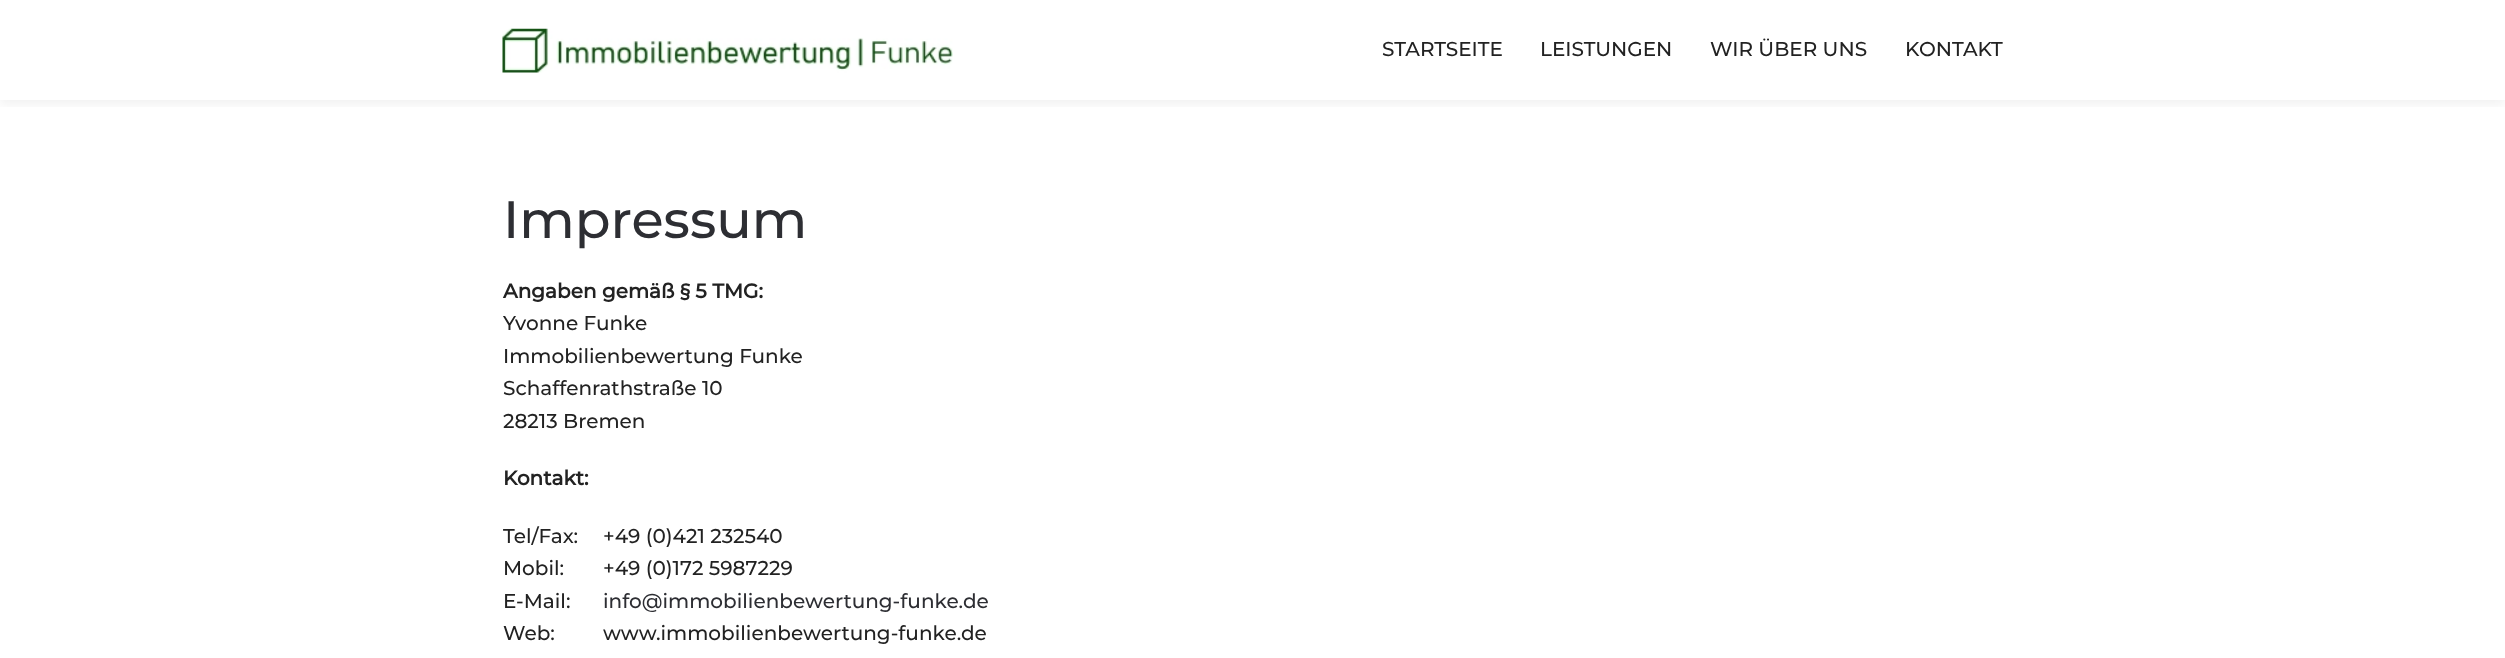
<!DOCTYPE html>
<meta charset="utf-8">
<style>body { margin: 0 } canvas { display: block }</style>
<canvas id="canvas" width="2505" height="658"></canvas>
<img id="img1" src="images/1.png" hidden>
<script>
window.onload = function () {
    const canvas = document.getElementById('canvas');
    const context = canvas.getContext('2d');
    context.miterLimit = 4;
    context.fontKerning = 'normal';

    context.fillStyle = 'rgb(255, 255, 255)';
    context.fillRect(0, 0, 2505, 658);
    context.save();
    context.beginPath();
    context.rect(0, 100, 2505, 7);
    context.clip();
    context.fillStyle = 'rgba(0, 0, 0, 0.06)';
    context.filter = 'blur(6px)';
    context.beginPath();
    context.rect(0, 4, 2505, 100);
    context.fill();
    context.filter = 'none';
    context.restore();
    context.drawImage(document.getElementById('img1'), 502, 28, 451, 45);
    context.font = '100 20px Montserrat';
    context.fillStyle = 'rgb(34, 34, 34)';
    context.fillText('STARTSEITE', 1382, 56);
    context.fillText('LEISTUNGEN', 1540, 56);
    context.fillText('WIR ÜBER UNS', 1710, 56);
    context.fillText('KONTAKT', 1905, 56);
    context.font = '100 52.5px Montserrat';
    context.fillStyle = 'rgb(45, 46, 51)';
    context.fillText('Impressum', 503, 238);
    context.font = 'bold 20px Montserrat';
    context.fillStyle = 'rgb(34, 34, 34)';
    context.fillText('Angaben gemäß § 5 TMG:', 503, 298);
    context.font = '100 20px Montserrat';
    context.fillText('Yvonne Funke', 503, 330);
    context.fillText('Immobilienbewertung Funke', 503, 363);
    context.fillText('Schaffenrathstraße 10', 503, 395);
    context.fillText('28213 Bremen', 503, 428);
    context.font = 'bold 20px Montserrat';
    context.fillText('Kontakt:', 503, 485);
    context.font = '100 20px Montserrat';
    context.fillText('Tel/Fax:', 503, 543);
    context.fillText('+49 (0)421 232540', 603, 543);
    context.fillText('Mobil:', 503, 575);
    context.fillText('+49 (0)172 5987229', 603, 575);
    context.fillText('E-Mail:', 503, 608);
    context.fillStyle = 'rgb(45, 46, 51)';
    context.fillText('info@immobilienbewertung-funke.de', 603, 608);
    context.fillStyle = 'rgb(34, 34, 34)';
    context.fillText('Web:', 503, 640);
    context.fillText('www.immobilienbewertung-funke.de', 603, 640);
};
</script>
